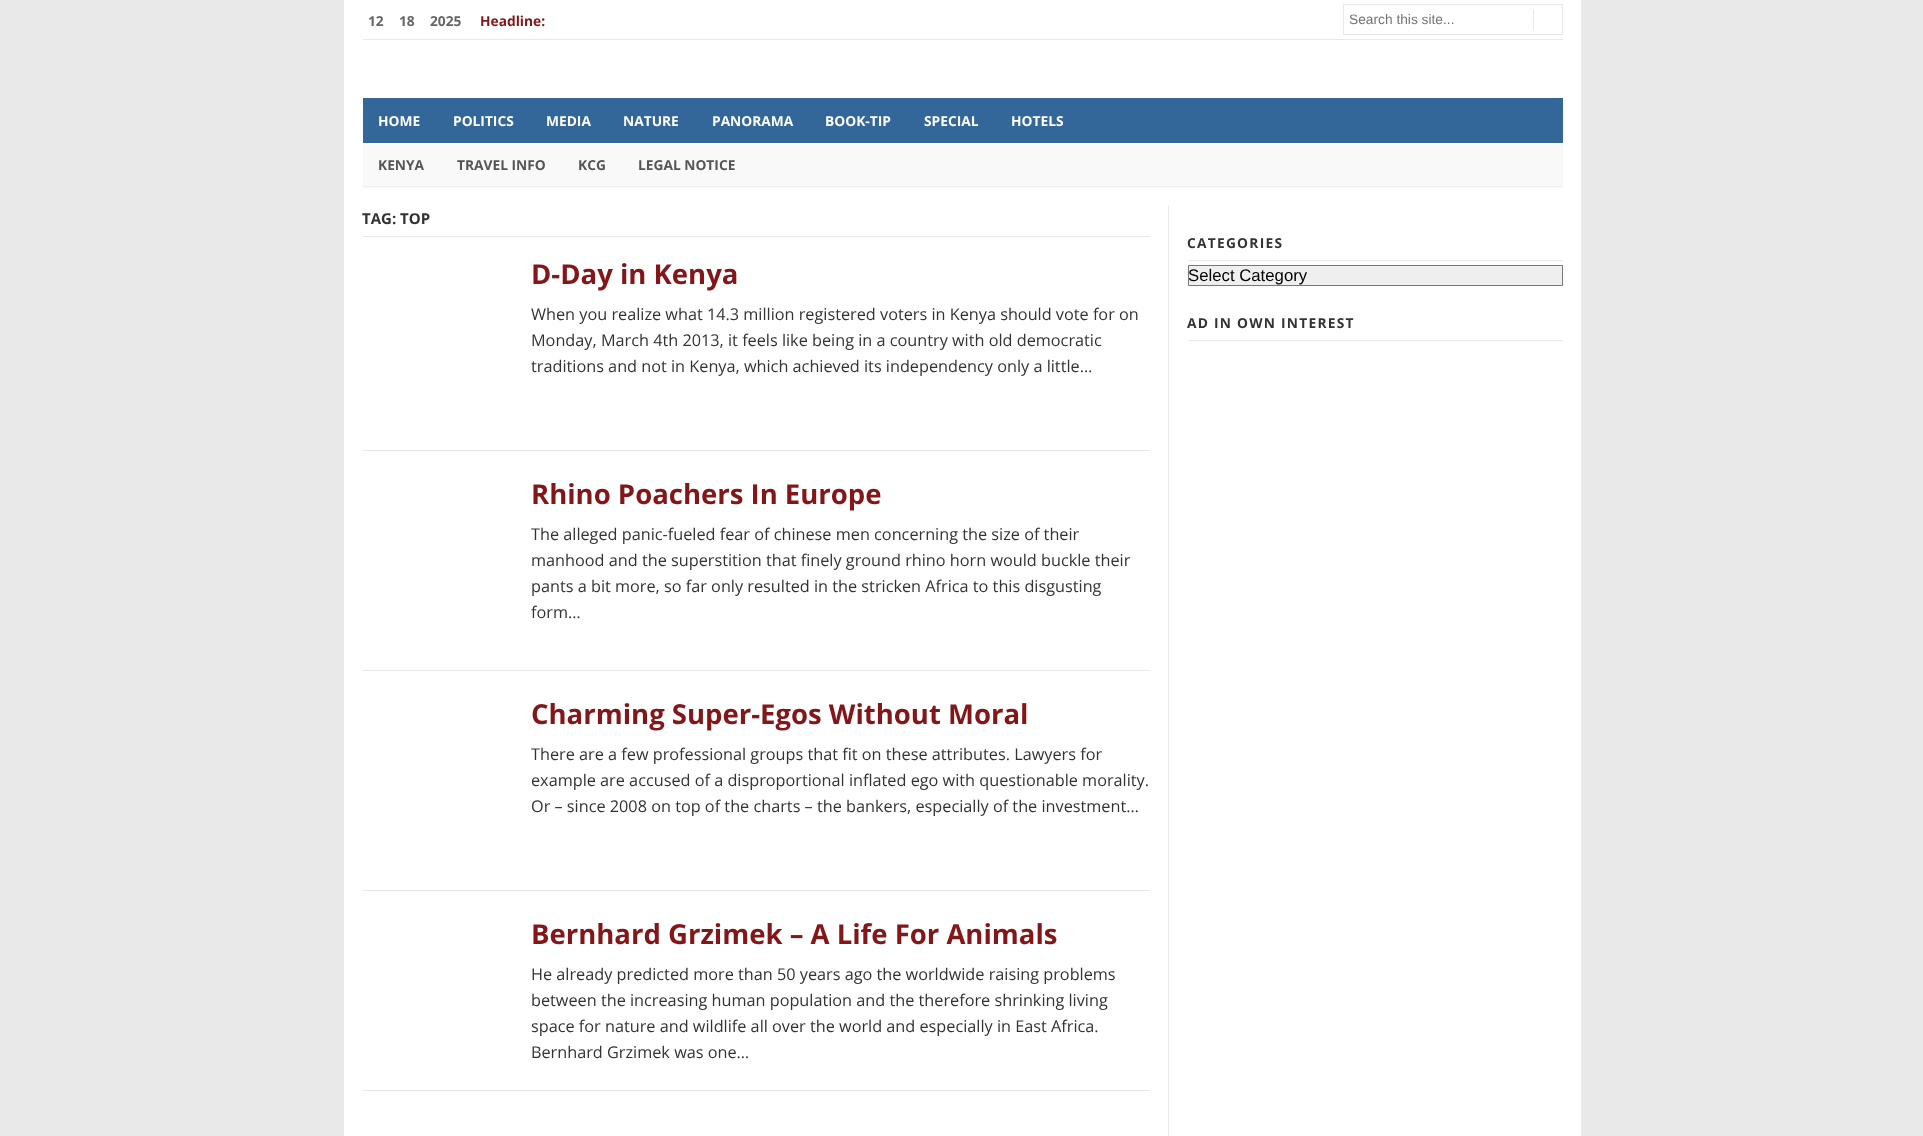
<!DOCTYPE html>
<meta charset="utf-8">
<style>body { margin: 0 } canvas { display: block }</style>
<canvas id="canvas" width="1923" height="1136"></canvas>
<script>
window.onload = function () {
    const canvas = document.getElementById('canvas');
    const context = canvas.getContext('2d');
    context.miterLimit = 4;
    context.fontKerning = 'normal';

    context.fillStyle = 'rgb(233, 233, 233)';
    context.fillRect(0, 0, 1923, 1136);
    context.fillStyle = 'rgb(255, 255, 255)';
    context.fillRect(344, 0, 1237, 1136);
    context.fillStyle = 'rgb(233, 233, 233)';
    context.fillRect(363, 39, 1200, 1);
    context.strokeStyle = 'rgb(233, 233, 233)';
    context.strokeRect(1343.5, 4.5, 219, 30);
    context.fillRect(1533, 9, 1, 21);
    context.fillStyle = 'rgb(51, 102, 153)';
    context.fillRect(363, 98, 1200, 45);
    context.fillStyle = 'rgb(249, 249, 249)';
    context.fillRect(363, 144, 1200, 44);
    context.fillStyle = 'rgb(238, 238, 238)';
    context.fillRect(363, 186, 1200, 1);
    context.fillStyle = 'rgb(233, 233, 233)';
    context.fillRect(1168, 206, 1, 930);
    context.fillRect(363, 236, 787, 1);
    context.fillRect(363, 450, 787, 1);
    context.fillRect(363, 670, 787, 1);
    context.fillRect(363, 890, 787, 1);
    context.fillRect(363, 1090, 787, 1);
    context.fillRect(1188, 260, 375, 1);
    context.fillStyle = 'rgb(239, 239, 239)';
    context.beginPath();
    context.rect(1188.5, 265.5, 374, 20);
    context.fill();
    context.strokeStyle = 'rgb(118, 118, 118)';
    context.stroke();
    context.fillStyle = 'rgb(233, 233, 233)';
    context.fillRect(1188, 340, 375, 1);
    context.font = 'bold 13.75px Open Sans';
    context.fillStyle = 'rgb(102, 102, 102)';
    context.fillText('12', 368, 26);
    context.fillText('18', 399, 26);
    context.fillText('2025', 430, 26);
    context.fillStyle = 'rgb(131, 22, 24)';
    context.fillText('Headline:', 480, 26);
    context.font = '13.75px Liberation Sans';
    context.fillStyle = 'rgb(117, 117, 117)';
    context.fillText('Search this site...', 1349, 24);
    context.font = 'bold 13.75px Open Sans';
    context.fillStyle = 'rgb(255, 255, 255)';
    context.fillText('HOME', 378, 126);
    context.fillText('POLITICS', 453, 126);
    context.fillText('MEDIA', 546, 126);
    context.fillText('NATURE', 623, 126);
    context.fillText('PANORAMA', 712, 126);
    context.fillText('BOOK-TIP', 825, 126);
    context.fillText('SPECIAL', 924, 126);
    context.fillText('HOTELS', 1011, 126);
    context.fillStyle = 'rgb(85, 85, 85)';
    context.fillText('KENYA', 378, 170);
    context.fillText('TRAVEL INFO', 457, 170);
    context.fillText('KCG', 578, 170);
    context.fillText('LEGAL NOTICE', 638, 170);
    context.font = 'bold 15px Open Sans';
    context.fillStyle = 'rgb(51, 51, 51)';
    context.fillText('TAG: TOP', 362, 224);
    context.font = 'bold 27.5px Open Sans';
    context.fillStyle = 'rgb(131, 22, 24)';
    context.fillText('D-Day in Kenya', 531, 284);
    context.font = '16.25px Open Sans';
    context.fillStyle = 'rgb(51, 51, 51)';
    context.fillText('When you realize what 14.3 million registered voters in Kenya should vote for on', 531, 320);
    context.fillText('Monday, March 4th 2013, it feels like being in a country with old democratic', 531, 346);
    context.fillText('traditions and not in Kenya, which achieved its independency only a little…', 531, 372);
    context.font = 'bold 27.5px Open Sans';
    context.fillStyle = 'rgb(131, 22, 24)';
    context.fillText('Rhino Poachers In Europe', 531, 504);
    context.font = '16.25px Open Sans';
    context.fillStyle = 'rgb(51, 51, 51)';
    context.fillText('The alleged panic-fueled fear of chinese men concerning the size of their', 531, 540);
    context.fillText('manhood and the superstition that finely ground rhino horn would buckle their', 531, 566);
    context.fillText('pants a bit more, so far only resulted in the stricken Africa to this disgusting', 531, 592);
    context.fillText('form…', 531, 618);
    context.font = 'bold 27.5px Open Sans';
    context.fillStyle = 'rgb(131, 22, 24)';
    context.fillText('Charming Super-Egos Without Moral', 531, 724);
    context.font = '16.25px Open Sans';
    context.fillStyle = 'rgb(51, 51, 51)';
    context.fillText('There are a few professional groups that fit on these attributes. Lawyers for', 531, 760);
    context.fillText('example are accused of a disproportional inflated ego with questionable morality.', 531, 786);
    context.fillText('Or – since 2008 on top of the charts – the bankers, especially of the investment…', 531, 812);
    context.font = 'bold 27.5px Open Sans';
    context.fillStyle = 'rgb(131, 22, 24)';
    context.fillText('Bernhard Grzimek – A Life For Animals', 531, 944);
    context.font = '16.25px Open Sans';
    context.fillStyle = 'rgb(51, 51, 51)';
    context.fillText('He already predicted more than 50 years ago the worldwide raising problems', 531, 980);
    context.fillText('between the increasing human population and the therefore shrinking living', 531, 1006);
    context.fillText('space for nature and wildlife all over the world and especially in East Africa.', 531, 1032);
    context.fillText('Bernhard Grzimek was one…', 531, 1058);
    context.letterSpacing = '1.25px';
    context.font = 'bold 13.75px Open Sans';
    context.fillText('CATEGORIES', 1187, 248);
    context.letterSpacing = '0px';
    context.font = '16.75px Liberation Sans';
    context.fillStyle = 'rgb(0, 0, 0)';
    context.fillText('Select Category', 1188, 281);
    context.letterSpacing = '1.25px';
    context.font = 'bold 13.75px Open Sans';
    context.fillStyle = 'rgb(51, 51, 51)';
    context.fillText('AD IN OWN INTEREST', 1187, 328);
};
</script>
